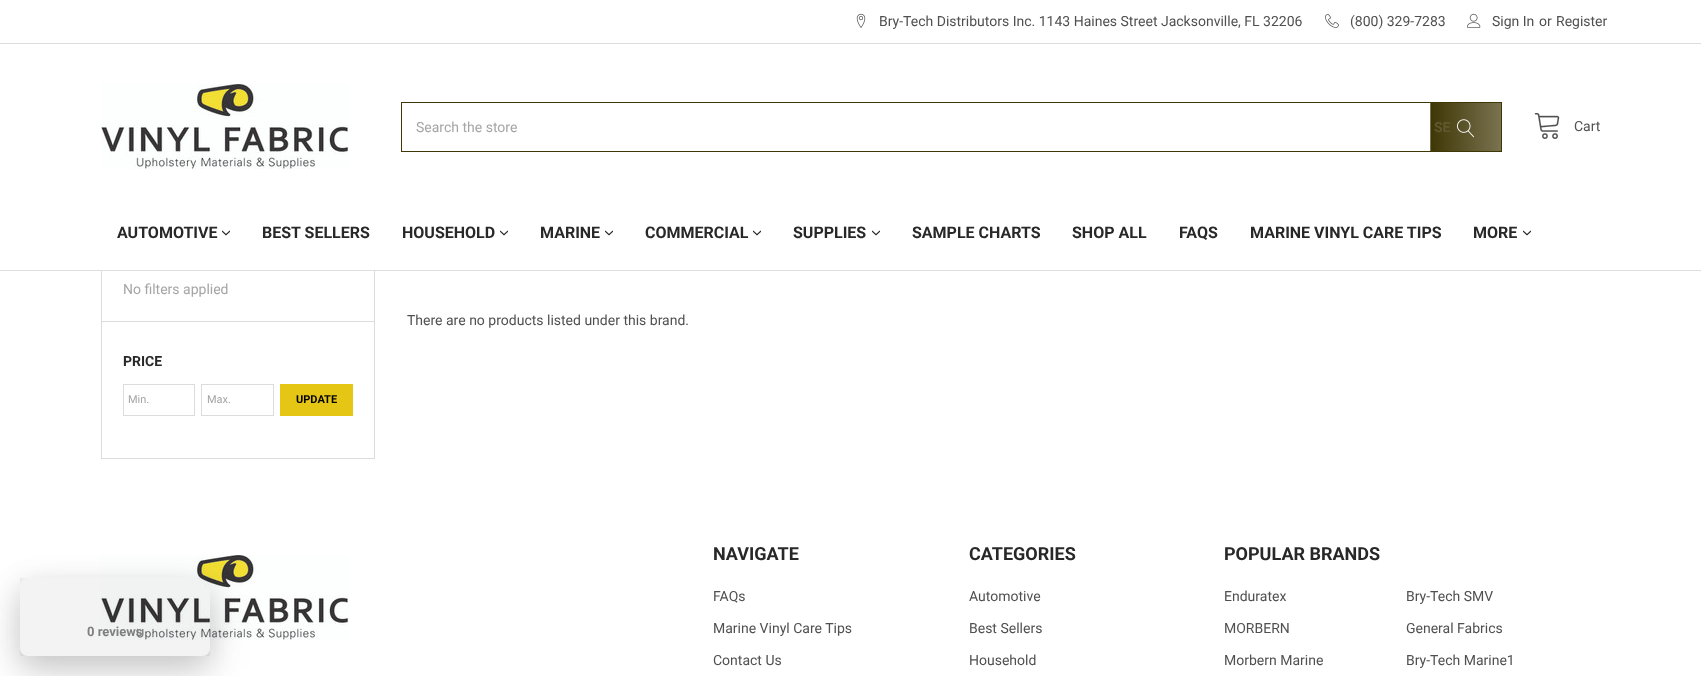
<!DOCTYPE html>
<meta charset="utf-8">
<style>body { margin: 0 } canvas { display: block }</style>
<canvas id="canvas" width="1701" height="676"></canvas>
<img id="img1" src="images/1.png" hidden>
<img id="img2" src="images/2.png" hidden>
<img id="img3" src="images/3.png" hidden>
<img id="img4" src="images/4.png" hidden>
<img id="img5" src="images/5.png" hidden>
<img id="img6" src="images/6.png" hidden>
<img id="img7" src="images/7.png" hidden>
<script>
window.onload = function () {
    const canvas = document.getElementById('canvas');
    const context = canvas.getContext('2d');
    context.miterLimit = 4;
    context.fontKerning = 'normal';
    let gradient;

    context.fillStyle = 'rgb(255, 255, 255)';
    context.fillRect(0, 0, 1701, 676);
    context.strokeStyle = 'rgb(220, 220, 220)';
    context.strokeRect(101.5, 214.5, 273, 244);
    context.fillRect(101, 214, 274, 56);
    context.fillStyle = 'rgb(222, 222, 222)';
    context.fillRect(0, 270, 1701, 1);
    context.fillStyle = 'rgb(220, 220, 220)';
    context.fillRect(0, 43, 1701, 1);
    context.drawImage(document.getElementById('img1'), 856, 13, 10, 15);
    context.drawImage(document.getElementById('img2'), 1325, 13, 14, 15);
    context.drawImage(document.getElementById('img3'), 1467, 13, 14, 15);
    context.drawImage(document.getElementById('img4'), 101, 84, 248, 85);
    context.strokeStyle = 'rgb(64, 55, 6)';
    context.strokeRect(401.5, 102.5, 1100, 49);
    gradient = context.createLinearGradient(1361, 127, 1431, 127);
    gradient.addColorStop(0, 'rgb(64, 55, 6)');
    gradient.addColorStop(1, 'rgba(64, 55, 6, 0.7)');
    context.fillStyle = gradient;
    context.fillRect(1430, 102, 1, 50);
    gradient = context.createLinearGradient(1431, 127, 1501, 127);
    gradient.addColorStop(0, 'rgb(64, 55, 6)');
    gradient.addColorStop(1, 'rgba(64, 55, 6, 0.7)');
    context.fillStyle = gradient;
    context.fillRect(1431, 103, 70, 48);
    context.drawImage(document.getElementById('img5'), 1457, 119, 17, 19);
    context.drawImage(document.getElementById('img6'), 1534, 113, 26, 26);
    context.drawImage(document.getElementById('img7'), 222, 230, 8, 6);
    context.drawImage(document.getElementById('img7'), 500, 230, 8, 6);
    context.drawImage(document.getElementById('img7'), 605, 230, 8, 6);
    context.drawImage(document.getElementById('img7'), 753, 230, 8, 6);
    context.drawImage(document.getElementById('img7'), 872, 230, 8, 6);
    context.drawImage(document.getElementById('img7'), 1523, 230, 8, 6);
    context.fillStyle = 'rgb(220, 220, 220)';
    context.fillRect(102, 321, 272, 1);
    context.strokeStyle = 'rgb(220, 220, 220)';
    context.strokeRect(123.5, 384.5, 71, 31);
    context.strokeRect(201.5, 384.5, 72, 31);
    context.fillStyle = 'rgb(230, 198, 21)';
    context.fillRect(280, 384, 73, 32);
    context.drawImage(document.getElementById('img4'), 101, 555, 248, 85);
    context.save();
    context.beginPath();
    context.moveTo(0, 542);
    context.lineTo(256, 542);
    context.lineTo(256, 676);
    context.lineTo(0, 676);
    context.closePath();
    context.moveTo(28, 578);
    context.lineTo(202, 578);
    context.bezierCurveTo(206.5, 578, 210, 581.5, 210, 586);
    context.lineTo(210, 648);
    context.bezierCurveTo(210, 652.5, 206.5, 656, 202, 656);
    context.lineTo(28, 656);
    context.bezierCurveTo(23.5, 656, 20, 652.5, 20, 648);
    context.lineTo(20, 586);
    context.bezierCurveTo(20, 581.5, 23.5, 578, 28, 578);
    context.closePath();
    context.clip('evenodd');
    context.fillStyle = 'rgba(0, 0, 0, 0.15)';
    context.filter = 'blur(15px)';
    context.beginPath();
    context.roundRect(20, 588, 190, 78, 8);
    context.fill();
    context.filter = 'none';
    context.restore();
    context.save();
    context.beginPath();
    context.moveTo(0, 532);
    context.lineTo(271, 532);
    context.lineTo(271, 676);
    context.lineTo(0, 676);
    context.closePath();
    context.moveTo(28, 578);
    context.lineTo(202, 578);
    context.bezierCurveTo(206.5, 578, 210, 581.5, 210, 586);
    context.lineTo(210, 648);
    context.bezierCurveTo(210, 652.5, 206.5, 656, 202, 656);
    context.lineTo(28, 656);
    context.bezierCurveTo(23.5, 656, 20, 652.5, 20, 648);
    context.lineTo(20, 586);
    context.bezierCurveTo(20, 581.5, 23.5, 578, 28, 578);
    context.closePath();
    context.clip('evenodd');
    context.fillStyle = 'rgba(0, 0, 0, 0.1)';
    context.filter = 'blur(20px)';
    context.beginPath();
    context.roundRect(20, 593, 190, 78, 8);
    context.fill();
    context.filter = 'none';
    context.restore();
    context.fillStyle = 'rgba(17, 17, 17, 0.05)';
    context.fillRect(20, 578, 190, 78);
    context.font = '14px Roboto';
    context.fillStyle = 'rgb(80, 80, 80)';
    context.fillText('Bry-Tech Distributors Inc. 1143 Haines Street Jacksonville, FL 32206', 879, 26);
    context.fillText('(800) 329-7283', 1350, 26);
    context.fillText('Sign In', 1492, 26);
    context.fillText('or', 1539, 26);
    context.fillText('Register', 1556, 26);
    context.fillStyle = 'rgb(165, 165, 165)';
    context.fillText('Search the store', 416, 132);
    context.font = 'bold 14px Roboto';
    context.fillStyle = 'rgb(95, 88, 47)';
    context.fillText('SE', 1434, 132);
    context.font = '14px Roboto';
    context.fillStyle = 'rgb(80, 80, 80)';
    context.fillText('Cart', 1574, 131);
    context.font = 'bold 16px Roboto';
    context.fillStyle = 'rgb(40, 40, 40)';
    context.fillText('AUTOMOTIVE', 117, 238);
    context.fillText('BEST SELLERS', 262, 238);
    context.fillText('HOUSEHOLD', 402, 238);
    context.fillText('MARINE', 540, 238);
    context.fillText('COMMERCIAL', 645, 238);
    context.fillText('SUPPLIES', 793, 238);
    context.fillText('SAMPLE CHARTS', 912, 238);
    context.fillText('SHOP ALL', 1072, 238);
    context.fillText('FAQS', 1179, 238);
    context.fillText('MARINE VINYL CARE TIPS', 1250, 238);
    context.fillText('MORE', 1473, 238);
    context.font = '14px Roboto';
    context.fillStyle = 'rgb(165, 165, 165)';
    context.fillText('No filters applied', 123, 294);
    context.font = 'bold 14px Roboto';
    context.fillStyle = 'rgb(40, 40, 40)';
    context.fillText('PRICE', 123, 366);
    context.font = '11px Roboto';
    context.fillStyle = 'rgb(165, 165, 165)';
    context.fillText('Min.', 128, 403);
    context.fillText('Max.', 207, 403);
    context.font = 'bold 11px Roboto';
    context.fillStyle = 'rgb(0, 0, 0)';
    context.fillText('UPDATE', 296, 403);
    context.font = '14px Roboto';
    context.fillStyle = 'rgb(80, 80, 80)';
    context.fillText('There are no products listed under this brand.', 407, 325);
    context.font = 'bold 13px Roboto';
    context.fillStyle = 'rgb(127, 127, 127)';
    context.fillText('0 reviews', 87, 636);
    context.font = 'bold 18px Roboto';
    context.fillStyle = 'rgb(40, 40, 40)';
    context.fillText('NAVIGATE', 713, 560);
    context.font = '14px Roboto';
    context.fillStyle = 'rgb(80, 80, 80)';
    context.fillText('FAQs', 713, 601);
    context.fillText('Marine Vinyl Care Tips', 713, 633);
    context.fillText('Contact Us', 713, 665);
    context.font = 'bold 18px Roboto';
    context.fillStyle = 'rgb(40, 40, 40)';
    context.fillText('CATEGORIES', 969, 560);
    context.font = '14px Roboto';
    context.fillStyle = 'rgb(80, 80, 80)';
    context.fillText('Automotive', 969, 601);
    context.fillText('Best Sellers', 969, 633);
    context.fillText('Household', 969, 665);
    context.font = 'bold 18px Roboto';
    context.fillStyle = 'rgb(40, 40, 40)';
    context.fillText('POPULAR BRANDS', 1224, 560);
    context.font = '14px Roboto';
    context.fillStyle = 'rgb(80, 80, 80)';
    context.fillText('Enduratex', 1224, 601);
    context.fillText('Bry-Tech SMV', 1406, 601);
    context.fillText('MORBERN', 1224, 633);
    context.fillText('General Fabrics', 1406, 633);
    context.fillText('Morbern Marine', 1224, 665);
    context.fillText('Bry-Tech Marine1', 1406, 665);
};
</script>
